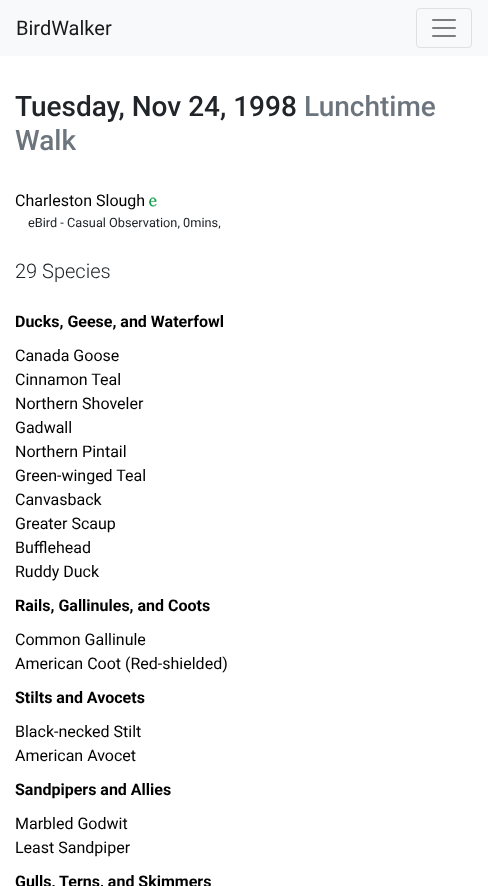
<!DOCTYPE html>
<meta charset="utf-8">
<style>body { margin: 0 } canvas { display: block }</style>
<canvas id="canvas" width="488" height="886"></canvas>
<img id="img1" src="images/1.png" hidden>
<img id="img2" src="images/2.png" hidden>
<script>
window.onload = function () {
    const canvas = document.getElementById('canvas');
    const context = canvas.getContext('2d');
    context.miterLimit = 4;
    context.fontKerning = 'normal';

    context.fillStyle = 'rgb(255, 255, 255)';
    context.fillRect(0, 0, 488, 886);
    context.fillStyle = 'rgb(248, 249, 250)';
    context.fillRect(0, 0, 488, 56);
    context.beginPath();
    context.roundRect(416.5, 8.5, 55, 39, 3.5);
    context.strokeStyle = 'rgb(223, 224, 225)';
    context.stroke();
    context.drawImage(document.getElementById('img1'), 432, 19, 24, 18);
    context.drawImage(document.getElementById('img2'), 149, 197, 8, 10);
    context.font = '20px Roboto';
    context.fillStyle = 'rgb(25, 25, 25)';
    context.fillText('BirdWalker', 16, 35);
    context.font = '500 28px Roboto';
    context.fillStyle = 'rgb(33, 37, 41)';
    context.fillText('Tuesday, Nov 24, 1998', 15, 116);
    context.fillStyle = 'rgb(108, 117, 125)';
    context.fillText('Lunchtime', 304, 116);
    context.fillText('Walk', 15, 150);
    context.font = '16px Roboto';
    context.fillStyle = 'rgb(0, 0, 0)';
    context.fillText('Charleston Slough', 15, 206);
    context.font = '12.75px Roboto';
    context.fillStyle = 'rgb(33, 37, 41)';
    context.fillText('eBird - Casual Observation, 0mins,', 28, 227);
    context.font = '300 20px Roboto';
    context.fillText('29 Species', 15, 278);
    context.font = 'bold 16px Roboto';
    context.fillStyle = 'rgb(0, 0, 0)';
    context.fillText('Ducks, Geese, and Waterfowl', 15, 327);
    context.font = '16px Roboto';
    context.fillText('Canada Goose', 15, 361);
    context.fillText('Cinnamon Teal', 15, 385);
    context.fillText('Northern Shoveler', 15, 409);
    context.fillText('Gadwall', 15, 433);
    context.fillText('Northern Pintail', 15, 457);
    context.fillText('Green-winged Teal', 15, 481);
    context.fillText('Canvasback', 15, 505);
    context.fillText('Greater Scaup', 15, 529);
    context.fillText('Bufflehead', 15, 553);
    context.fillText('Ruddy Duck', 15, 577);
    context.font = 'bold 16px Roboto';
    context.fillText('Rails, Gallinules, and Coots', 15, 611);
    context.font = '16px Roboto';
    context.fillText('Common Gallinule', 15, 645);
    context.fillText('American Coot (Red-shielded)', 15, 669);
    context.font = 'bold 16px Roboto';
    context.fillText('Stilts and Avocets', 15, 703);
    context.font = '16px Roboto';
    context.fillText('Black-necked Stilt', 15, 737);
    context.fillText('American Avocet', 15, 761);
    context.font = 'bold 16px Roboto';
    context.fillText('Sandpipers and Allies', 15, 795);
    context.font = '16px Roboto';
    context.fillText('Marbled Godwit', 15, 829);
    context.fillText('Least Sandpiper', 15, 853);
    context.font = 'bold 16px Roboto';
    context.fillText('Gulls, Terns, and Skimmers', 15, 887);
};
</script>
